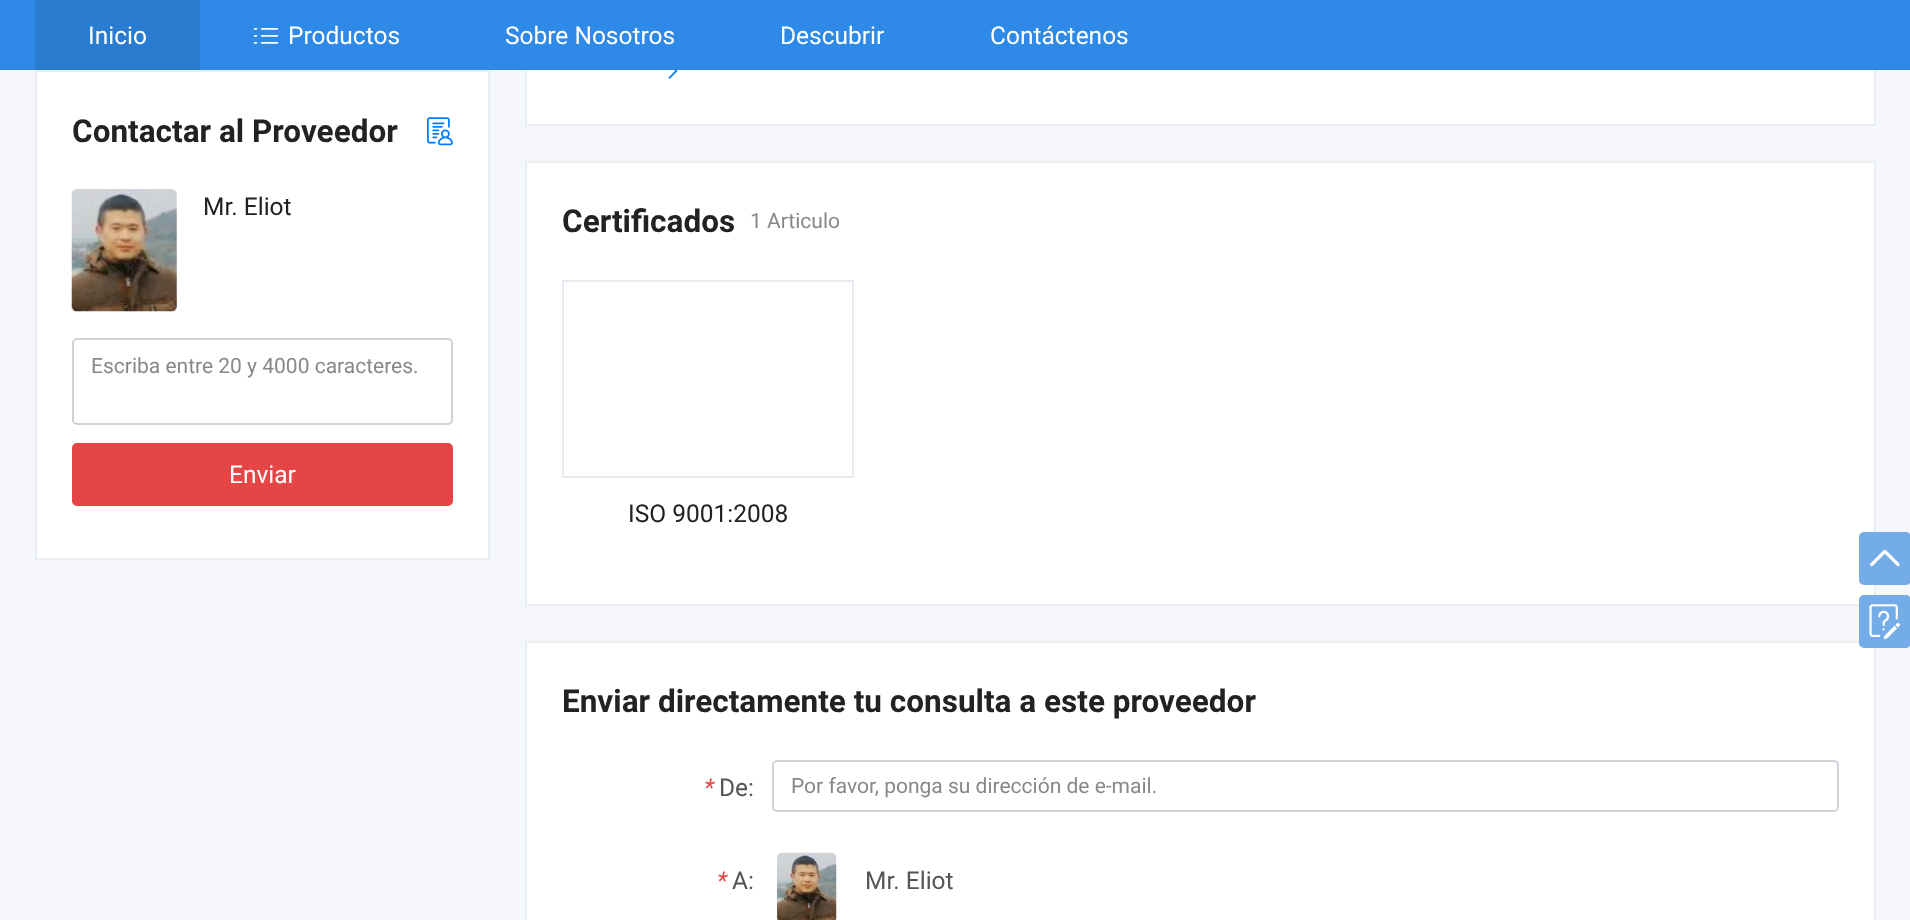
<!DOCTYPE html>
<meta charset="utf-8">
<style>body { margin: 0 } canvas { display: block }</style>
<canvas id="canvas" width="1910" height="920"></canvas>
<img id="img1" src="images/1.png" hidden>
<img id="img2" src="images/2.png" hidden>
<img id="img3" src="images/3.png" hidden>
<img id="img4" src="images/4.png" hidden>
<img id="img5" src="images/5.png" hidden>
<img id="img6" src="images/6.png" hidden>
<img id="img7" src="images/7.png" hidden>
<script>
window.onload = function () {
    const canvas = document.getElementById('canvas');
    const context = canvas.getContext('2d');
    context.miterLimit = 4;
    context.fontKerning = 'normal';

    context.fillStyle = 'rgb(245, 247, 250)';
    context.fillRect(0, 0, 1910, 920);
    context.fillStyle = 'rgb(255, 255, 255)';
    context.fillRect(527, 70, 1347, 54);
    context.strokeStyle = 'rgb(233, 238, 244)';
    context.lineWidth = 2;
    context.strokeRect(526, -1, 1349, 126);
    context.fillStyle = 'rgb(46, 138, 230)';
    context.fillRect(0, 0, 1910, 70);
    context.fillStyle = 'rgb(41, 124, 207)';
    context.fillRect(35, 0, 165, 70);
    context.drawImage(document.getElementById('img1'), 253, 28, 26, 16);
    context.fillStyle = 'rgb(255, 255, 255)';
    context.beginPath();
    context.rect(36, 71, 453, 488);
    context.fill();
    context.stroke();
    context.drawImage(document.getElementById('img2'), 427, 117, 26, 29);
    context.drawImage(document.getElementById('img3'), 71, 189, 106, 123);
    context.beginPath();
    context.roundRect(73, 339, 379, 85, 4);
    context.strokeStyle = 'rgb(206, 211, 217)';
    context.stroke();
    context.fillStyle = 'rgb(230, 69, 69)';
    context.beginPath();
    context.roundRect(73, 444, 379, 61, 4);
    context.fill();
    context.strokeStyle = 'rgb(230, 69, 69)';
    context.stroke();
    context.drawImage(document.getElementById('img4'), 668, 70, 10, 9);
    context.fillStyle = 'rgb(255, 255, 255)';
    context.beginPath();
    context.rect(526, 162, 1349, 443);
    context.fill();
    context.strokeStyle = 'rgb(233, 238, 244)';
    context.stroke();
    context.strokeStyle = 'rgb(230, 236, 242)';
    context.strokeRect(563, 281, 290, 196);
    context.beginPath();
    context.rect(526, 642, 1349, 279);
    context.fill();
    context.strokeStyle = 'rgb(233, 238, 244)';
    context.stroke();
    context.beginPath();
    context.roundRect(773, 761, 1065, 50, 4);
    context.strokeStyle = 'rgb(206, 211, 217)';
    context.stroke();
    context.drawImage(document.getElementById('img5'), 777, 852, 60, 68);
    context.fillStyle = 'rgb(115, 172, 230)';
    context.beginPath();
    context.roundRect(1859, 532, 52, 53, 5);
    context.fill();
    context.drawImage(document.getElementById('img6'), 1870, 549, 30, 18);
    context.beginPath();
    context.roundRect(1859, 595, 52, 53, 5);
    context.fill();
    context.drawImage(document.getElementById('img7'), 1869, 604, 31, 36);
    context.font = '24.5px Roboto';
    context.fillStyle = 'rgb(255, 255, 255)';
    context.fillText('Inicio', 88, 44);
    context.fillText('Productos', 288, 44);
    context.fillText('Sobre Nosotros', 505, 44);
    context.fillText('Descubrir', 780, 44);
    context.fillText('Contáctenos', 990, 44);
    context.font = 'bold 31.5px Roboto';
    context.fillStyle = 'rgb(34, 34, 34)';
    context.fillText('Contactar al Proveedor', 72, 142);
    context.font = '24.5px Roboto';
    context.fillText('Mr. Eliot', 203, 215);
    context.font = '21px Roboto';
    context.fillStyle = 'rgb(136, 136, 136)';
    context.fillText('Escriba entre 20 y 4000 caracteres.', 91, 373);
    context.font = '24.5px Roboto';
    context.fillStyle = 'rgb(255, 255, 255)';
    context.fillText('Enviar', 229, 483);
    context.font = 'bold 31.5px Roboto';
    context.fillStyle = 'rgb(34, 34, 34)';
    context.fillText('Certificados', 562, 232);
    context.font = '21px Roboto';
    context.fillStyle = 'rgb(136, 136, 136)';
    context.fillText('1 Articulo', 750, 228);
    context.font = '24.5px Roboto';
    context.fillStyle = 'rgb(34, 34, 34)';
    context.fillText('ISO 9001:2008', 628, 522);
    context.font = 'bold 31.5px Roboto';
    context.fillText('Enviar directamente tu consulta a este proveedor', 562, 712);
    context.font = 'italic 24.5px Roboto';
    context.fillStyle = 'rgb(230, 69, 69)';
    context.fillText('*', 704, 796);
    context.font = '24.5px Roboto';
    context.fillStyle = 'rgb(85, 85, 85)';
    context.fillText('De:', 719, 796);
    context.font = '21px Roboto';
    context.fillStyle = 'rgb(136, 136, 136)';
    context.fillText('Por favor, ponga su dirección de e-mail.', 791, 793);
    context.font = 'italic 24.5px Roboto';
    context.fillStyle = 'rgb(230, 69, 69)';
    context.fillText('*', 717, 889);
    context.font = '24.5px Roboto';
    context.fillStyle = 'rgb(85, 85, 85)';
    context.fillText('A:', 732, 889);
    context.fillText('Mr. Eliot', 865, 889);
};
</script>
